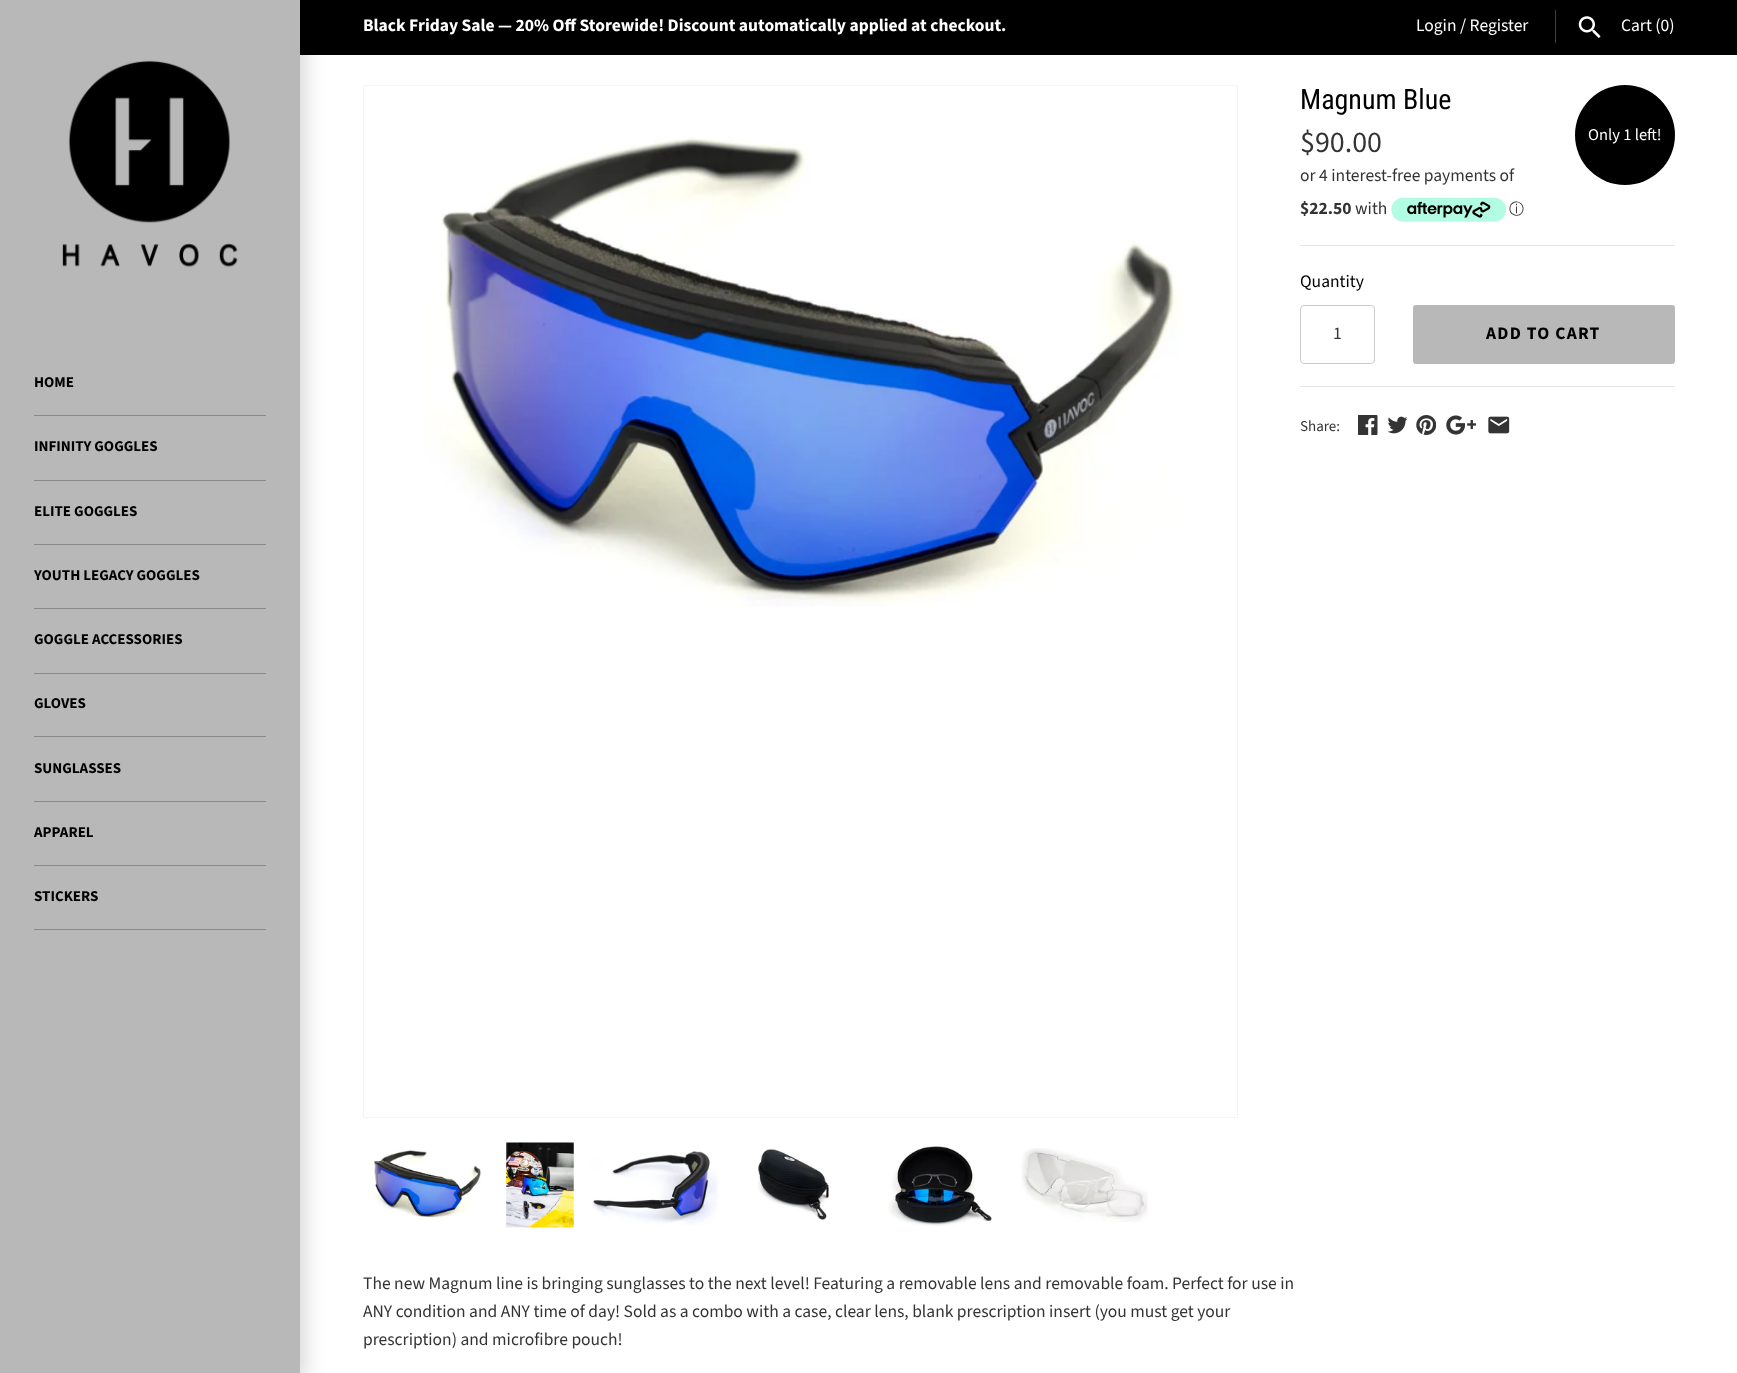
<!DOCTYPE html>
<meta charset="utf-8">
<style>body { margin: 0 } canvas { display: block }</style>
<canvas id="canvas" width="1737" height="1373"></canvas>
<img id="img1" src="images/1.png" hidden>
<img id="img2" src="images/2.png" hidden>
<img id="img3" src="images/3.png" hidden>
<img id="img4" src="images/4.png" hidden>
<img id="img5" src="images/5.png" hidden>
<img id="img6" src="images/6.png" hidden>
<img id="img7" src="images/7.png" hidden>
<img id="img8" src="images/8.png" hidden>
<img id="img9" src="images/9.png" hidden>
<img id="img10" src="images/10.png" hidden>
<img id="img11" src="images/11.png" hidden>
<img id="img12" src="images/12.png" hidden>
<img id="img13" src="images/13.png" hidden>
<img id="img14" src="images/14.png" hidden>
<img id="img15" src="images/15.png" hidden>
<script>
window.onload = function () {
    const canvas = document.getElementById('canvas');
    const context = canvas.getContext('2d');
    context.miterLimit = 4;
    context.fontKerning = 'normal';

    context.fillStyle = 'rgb(255, 255, 255)';
    context.fillRect(0, 0, 1737, 1373);
    context.fillStyle = 'rgb(0, 0, 0)';
    context.fillRect(300, 0, 1437, 55);
    context.fillStyle = 'rgb(64, 64, 64)';
    context.fillRect(1555, 10, 1, 33);
    context.drawImage(document.getElementById('img1'), 1578, 16, 23, 22);
    context.fillStyle = 'rgba(0, 0, 0, 0.15)';
    context.filter = 'blur(9.5px)';
    context.beginPath();
    context.rect(-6, -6, 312, 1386);
    context.fill();
    context.filter = 'none';
    context.fillStyle = 'rgb(184, 184, 184)';
    context.fillRect(0, 0, 300, 1373);
    context.drawImage(document.getElementById('img2'), 62, 60, 176, 208);
    context.fillStyle = 'rgb(138, 138, 138)';
    context.fillRect(34, 415, 232, 1);
    context.fillRect(34, 480, 232, 1);
    context.fillRect(34, 544, 232, 1);
    context.fillRect(34, 608, 232, 1);
    context.fillRect(34, 673, 232, 1);
    context.fillRect(34, 736, 232, 1);
    context.fillRect(34, 801, 232, 1);
    context.fillRect(34, 865, 232, 1);
    context.fillRect(34, 929, 232, 1);
    context.strokeStyle = 'rgb(245, 245, 245)';
    context.strokeRect(363.5, 85.5, 874, 1032);
    context.drawImage(document.getElementById('img3'), 425, 137, 759, 470);
    context.drawImage(document.getElementById('img4'), 372, 1149, 110, 70);
    context.drawImage(document.getElementById('img5'), 506, 1142, 68, 86);
    context.drawImage(document.getElementById('img6'), 590, 1151, 128, 75);
    context.drawImage(document.getElementById('img7'), 757, 1148, 72, 72);
    context.drawImage(document.getElementById('img8'), 888, 1146, 104, 80);
    context.drawImage(document.getElementById('img9'), 1021, 1148, 127, 74);
    context.drawImage(document.getElementById('img10'), 1391, 197, 115, 25);
    context.fillStyle = 'rgb(0, 0, 0)';
    context.beginPath();
    context.arc(1625, 135, 50, 0, 2 * Math.PI);
    context.fill();
    context.fillStyle = 'rgb(231, 231, 231)';
    context.fillRect(1300, 245, 375, 1);
    context.beginPath();
    context.roundRect(1300.5, 305.5, 74, 58, 3.5);
    context.strokeStyle = 'rgb(204, 204, 204)';
    context.stroke();
    context.fillStyle = 'rgb(184, 184, 184)';
    context.beginPath();
    context.roundRect(1413.5, 305.5, 261, 58, 2);
    context.fill();
    context.strokeStyle = 'rgb(184, 184, 184)';
    context.stroke();
    context.fillStyle = 'rgb(231, 231, 231)';
    context.fillRect(1300, 386, 375, 1);
    context.drawImage(document.getElementById('img11'), 1358, 415, 20, 20);
    context.drawImage(document.getElementById('img12'), 1388, 416, 20, 18);
    context.drawImage(document.getElementById('img13'), 1416, 415, 20, 20);
    context.drawImage(document.getElementById('img14'), 1446, 415, 30, 20);
    context.drawImage(document.getElementById('img15'), 1488, 416, 22, 18);
    context.font = 'bold 17.5px Source Sans Pro';
    context.fillStyle = 'rgb(255, 255, 255)';
    context.fillText('Black Friday Sale — 20% Off Storewide! Discount automatically applied at checkout.', 363, 31);
    context.font = '17.5px Source Sans Pro';
    context.fillText('Login / Register', 1416, 31);
    context.fillText('Cart (0)', 1621, 31);
    context.font = 'bold 15px Source Sans Pro';
    context.fillStyle = 'rgb(0, 0, 0)';
    context.fillText('HOME', 34, 387);
    context.fillText('INFINITY GOGGLES', 34, 451);
    context.fillText('ELITE GOGGLES', 34, 516);
    context.fillText('YOUTH LEGACY GOGGLES', 34, 580);
    context.fillText('GOGGLE ACCESSORIES', 34, 644);
    context.fillText('GLOVES', 34, 708);
    context.fillText('SUNGLASSES', 34, 773);
    context.fillText('APPAREL', 34, 837);
    context.fillText('STICKERS', 34, 901);
    context.font = '28px Roboto Condensed';
    context.fillText('Magnum Blue', 1300, 109);
    context.font = '30px Source Sans Pro';
    context.fillStyle = 'rgb(51, 51, 51)';
    context.fillText('$90.00', 1300, 152);
    context.font = '17.5px Source Sans Pro';
    context.fillText('or 4 interest-free payments of', 1300, 181);
    context.font = 'bold 17.5px Source Sans Pro';
    context.fillText('$22.50', 1300, 214);
    context.font = '17.5px Source Sans Pro';
    context.fillText('with', 1355, 214);
    context.font = '500 15px WenQuanYi Zen Hei';
    context.fillText('ⓘ', 1509, 214);
    context.font = '16.5px Source Sans Pro';
    context.fillStyle = 'rgb(255, 255, 255)';
    context.fillText('Only 1 left!', 1588, 140);
    context.font = '17.5px Source Sans Pro';
    context.fillStyle = 'rgb(0, 0, 0)';
    context.fillText('Quantity', 1300, 287);
    context.fillStyle = 'rgb(51, 51, 51)';
    context.fillText('1', 1333, 339);
    context.letterSpacing = '1.25px';
    context.font = 'bold 17.5px Source Sans Pro';
    context.fillStyle = 'rgb(0, 0, 0)';
    context.fillText('ADD TO CART', 1486, 339);
    context.letterSpacing = '0px';
    context.font = '15px Source Sans Pro';
    context.fillStyle = 'rgb(51, 51, 51)';
    context.fillText('Share:', 1300, 431);
    context.font = '17.5px Source Sans Pro';
    context.fillText('The new Magnum line is bringing sunglasses to the next level! Featuring a removable lens and removable foam. Perfect for use in', 363, 1289);
    context.fillText('ANY condition and ANY time of day! Sold as a combo with a case, clear lens, blank prescription insert (you must get your', 363, 1317);
    context.fillText('prescription) and microfibre pouch!', 363, 1345);
};
</script>
